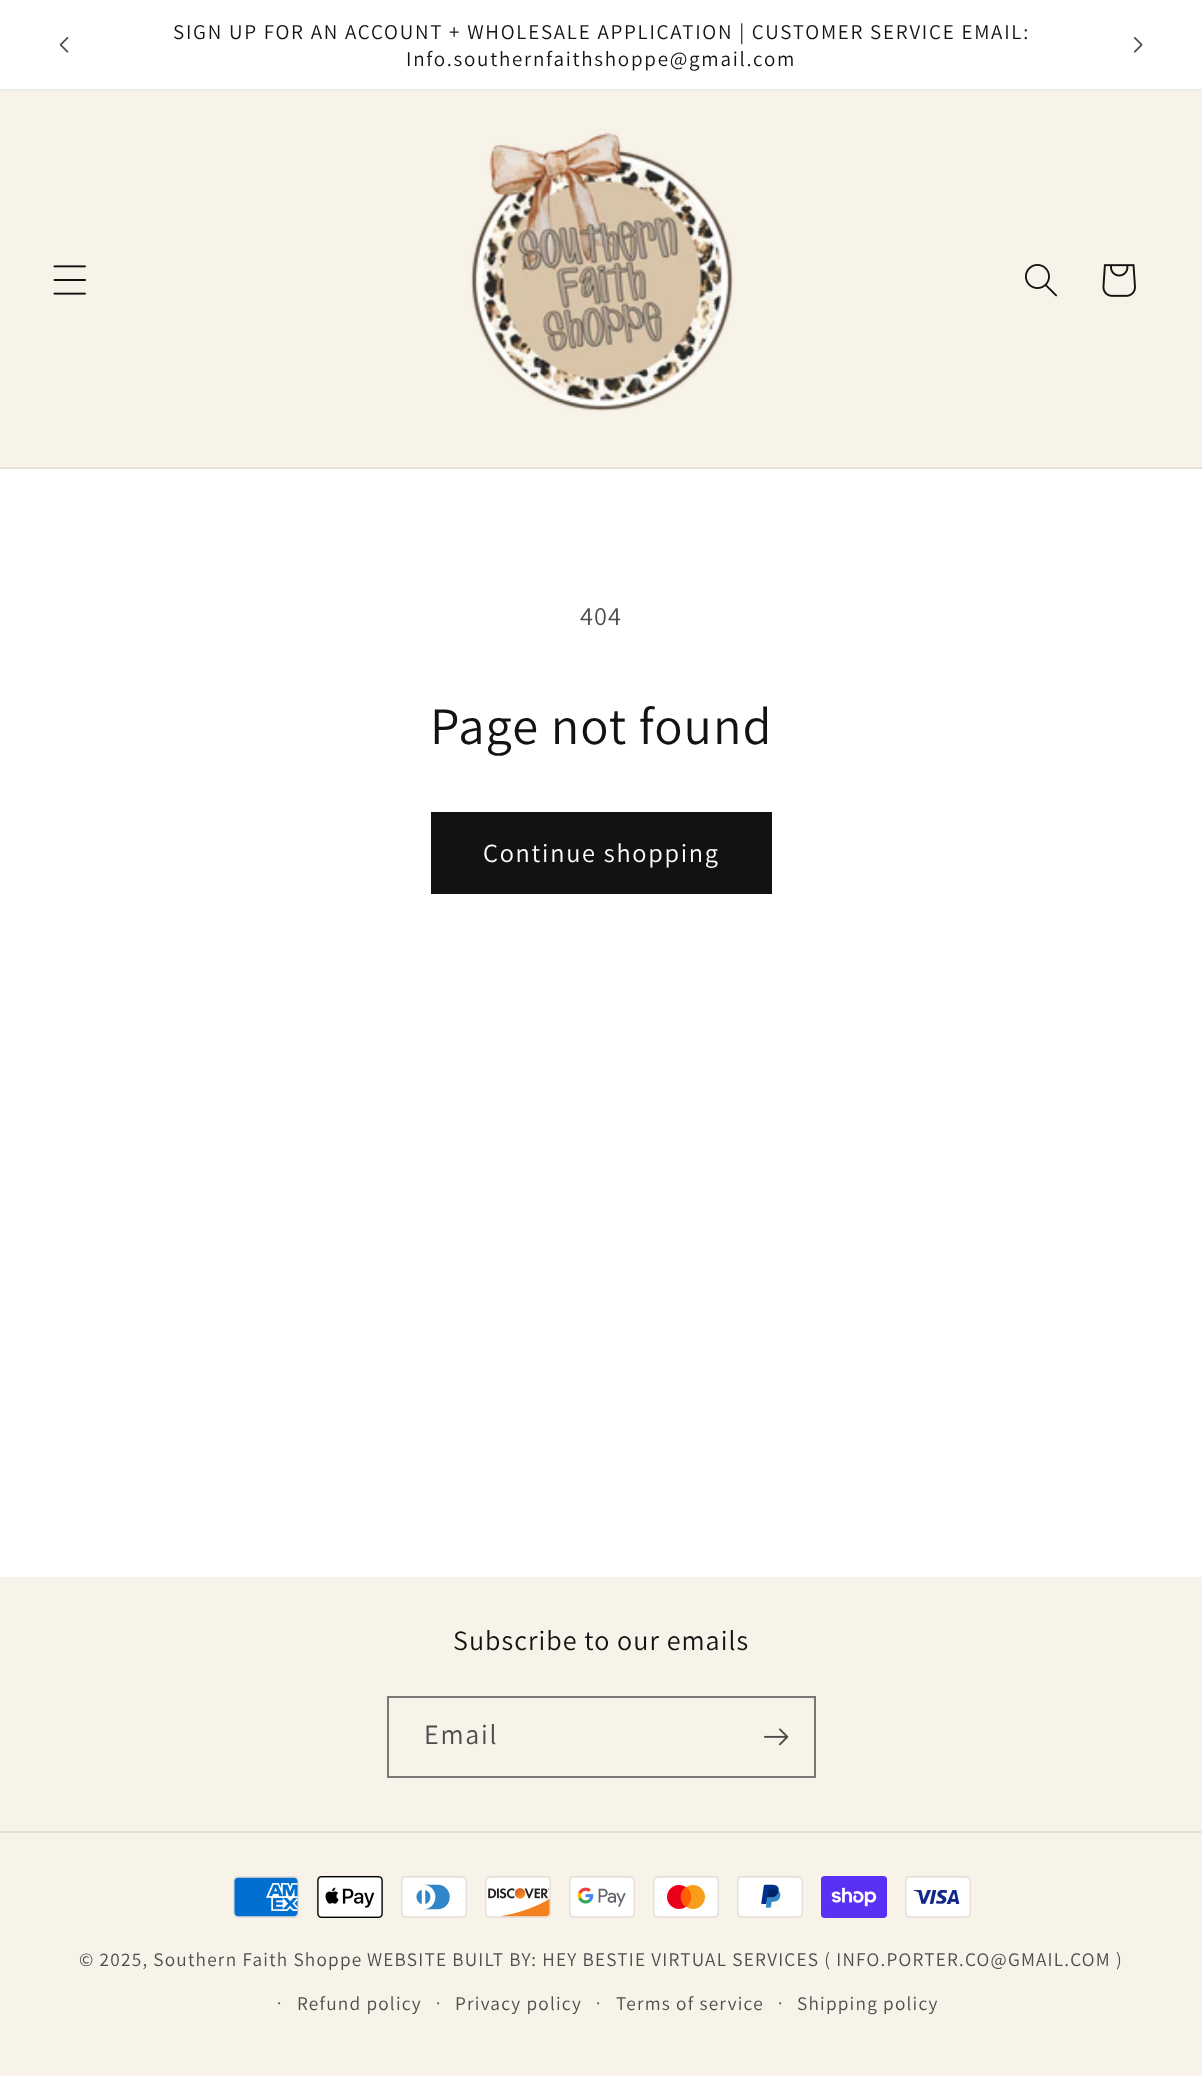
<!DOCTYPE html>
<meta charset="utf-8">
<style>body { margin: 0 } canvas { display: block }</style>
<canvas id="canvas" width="1202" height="2076"></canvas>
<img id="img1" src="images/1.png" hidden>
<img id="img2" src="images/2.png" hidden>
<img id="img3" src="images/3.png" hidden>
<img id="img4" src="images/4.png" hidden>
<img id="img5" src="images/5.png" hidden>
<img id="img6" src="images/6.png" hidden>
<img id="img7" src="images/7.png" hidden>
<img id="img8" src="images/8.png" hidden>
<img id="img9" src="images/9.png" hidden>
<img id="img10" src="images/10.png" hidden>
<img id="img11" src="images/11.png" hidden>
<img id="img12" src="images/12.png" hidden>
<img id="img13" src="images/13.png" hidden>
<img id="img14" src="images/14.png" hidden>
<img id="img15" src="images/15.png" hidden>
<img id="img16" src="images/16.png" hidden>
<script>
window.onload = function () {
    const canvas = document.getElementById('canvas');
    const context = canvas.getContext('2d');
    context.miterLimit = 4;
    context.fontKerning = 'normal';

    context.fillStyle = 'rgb(255, 255, 255)';
    context.fillRect(0, 0, 1202, 2076);
    context.fillStyle = 'rgb(236, 236, 236)';
    context.fillRect(0, 89, 1202, 2);
    context.drawImage(document.getElementById('img1'), 59, 37, 10, 16);
    context.drawImage(document.getElementById('img2'), 1133, 37, 10, 16);
    context.fillStyle = 'rgb(247, 243, 233)';
    context.fillRect(0, 91, 1202, 376);
    context.fillStyle = 'rgb(229, 225, 216)';
    context.fillRect(0, 467, 1202, 2);
    context.drawImage(document.getElementById('img3'), 53, 265, 33, 30);
    context.drawImage(document.getElementById('img4'), 470, 132, 264, 280);
    context.drawImage(document.getElementById('img5'), 1025, 264, 32, 33);
    context.drawImage(document.getElementById('img6'), 1102, 264, 34, 33);
    context.fillStyle = 'rgb(18, 18, 18)';
    context.fillRect(431, 812, 341, 82);
    context.fillStyle = 'rgb(247, 243, 233)';
    context.fillRect(0, 1577, 1202, 499);
    context.strokeStyle = 'rgb(121, 119, 115)';
    context.lineWidth = 2;
    context.strokeRect(388, 1697, 427, 80);
    context.drawImage(document.getElementById('img7'), 764, 1728, 25, 18);
    context.fillStyle = 'rgb(229, 225, 216)';
    context.fillRect(0, 1831, 1202, 2);
    context.drawImage(document.getElementById('img8'), 233, 1876, 66, 42);
    context.drawImage(document.getElementById('img9'), 317, 1876, 66, 42);
    context.drawImage(document.getElementById('img10'), 401, 1876, 66, 42);
    context.drawImage(document.getElementById('img11'), 485, 1876, 66, 42);
    context.drawImage(document.getElementById('img12'), 569, 1876, 66, 42);
    context.drawImage(document.getElementById('img13'), 653, 1876, 66, 42);
    context.drawImage(document.getElementById('img14'), 737, 1876, 66, 42);
    context.drawImage(document.getElementById('img15'), 821, 1876, 66, 42);
    context.drawImage(document.getElementById('img16'), 905, 1876, 66, 42);
    context.letterSpacing = '1.75px';
    context.font = '21px Assistant';
    context.fillStyle = 'rgb(18, 18, 18)';
    context.fillText('SIGN UP FOR AN ACCOUNT + WHOLESALE APPLICATION | CUSTOMER SERVICE EMAIL:', 173, 39);
    context.fillText('Info.southernfaithshoppe@gmail.com', 406, 66);
    context.letterSpacing = '1.05px';
    context.font = '26.25px Assistant';
    context.fillStyle = 'rgb(77, 77, 77)';
    context.fillText('404', 580, 625);
    context.font = '52.5px Assistant';
    context.fillStyle = 'rgb(18, 18, 18)';
    context.fillText('Page not found', 430, 744);
    context.letterSpacing = '1.75px';
    context.font = '26.25px Assistant';
    context.fillStyle = 'rgb(255, 255, 255)';
    context.fillText('Continue shopping', 483, 862);
    context.letterSpacing = '1.05px';
    context.font = '28px Assistant';
    context.fillStyle = 'rgb(18, 18, 18)';
    context.fillText('Subscribe to our emails', 453, 1650);
    context.letterSpacing = '1.75px';
    context.fillStyle = 'rgb(77, 77, 77)';
    context.fillText('Email', 424, 1744);
    context.letterSpacing = '1.22px';
    context.font = '19.25px Assistant';
    context.fillText('© 2025, Southern Faith Shoppe', 79, 1966);
    context.fillText('WEBSITE BUILT BY: HEY BESTIE VIRTUAL SERVICES ( INFO.PORTER.CO@GMAIL.COM )', 367, 1966);
    context.font = '18px Assistant';
    context.fillText('·', 277, 2009);
    context.font = '19.25px Assistant';
    context.fillText('Refund policy', 297, 2010);
    context.font = '18px Assistant';
    context.fillText('·', 436, 2009);
    context.font = '19.25px Assistant';
    context.fillText('Privacy policy', 455, 2010);
    context.font = '18px Assistant';
    context.fillText('·', 596, 2009);
    context.font = '19.25px Assistant';
    context.fillText('Terms of service', 616, 2010);
    context.font = '18px Assistant';
    context.fillText('·', 778, 2009);
    context.font = '19.25px Assistant';
    context.fillText('Shipping policy', 797, 2010);
};
</script>
